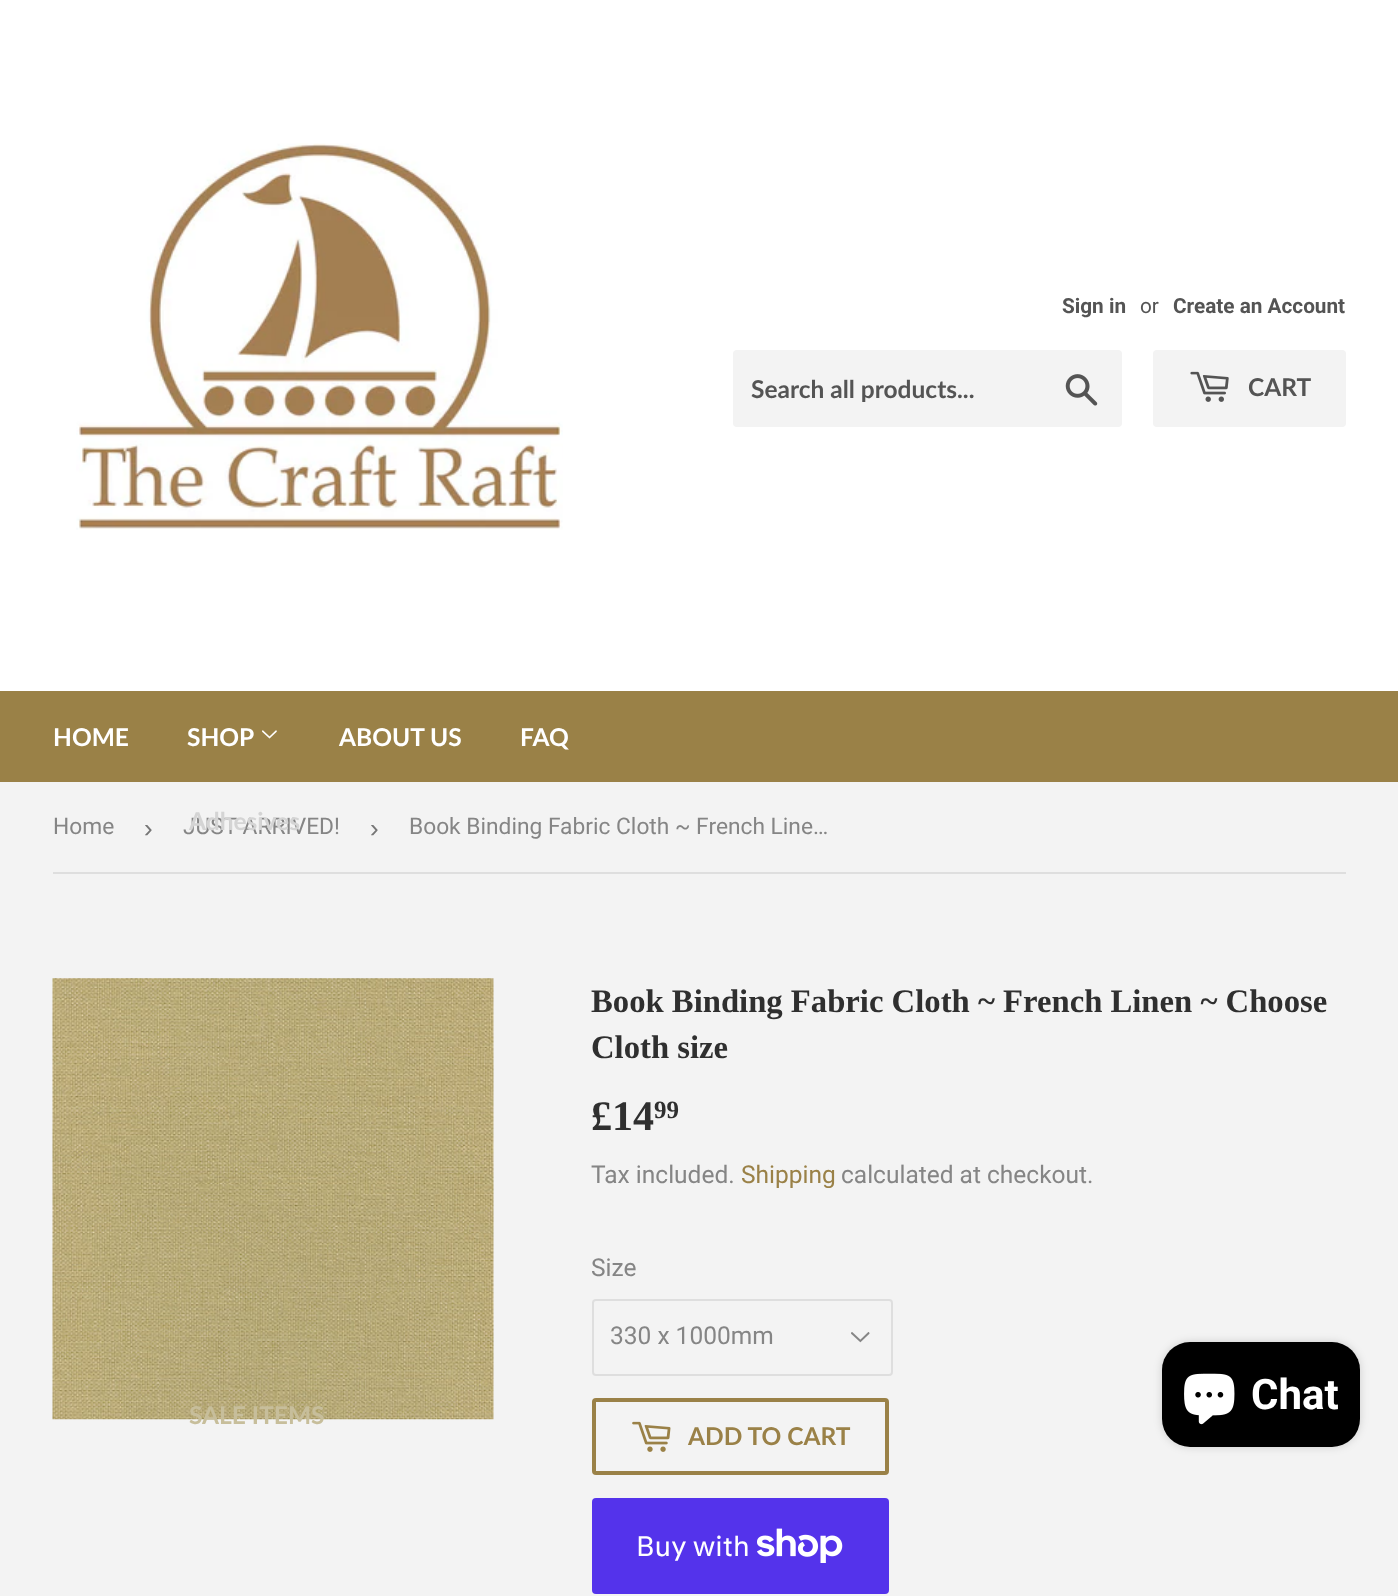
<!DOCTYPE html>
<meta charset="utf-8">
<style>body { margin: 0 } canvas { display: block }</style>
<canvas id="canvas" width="1398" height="1596"></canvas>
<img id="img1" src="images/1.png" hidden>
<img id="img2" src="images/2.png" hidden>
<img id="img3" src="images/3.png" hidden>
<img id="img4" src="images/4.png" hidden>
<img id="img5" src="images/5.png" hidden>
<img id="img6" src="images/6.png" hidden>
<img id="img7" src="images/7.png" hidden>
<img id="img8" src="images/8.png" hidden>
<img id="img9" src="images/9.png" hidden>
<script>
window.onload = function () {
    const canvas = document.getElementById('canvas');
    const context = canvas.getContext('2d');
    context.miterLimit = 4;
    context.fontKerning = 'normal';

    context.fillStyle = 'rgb(243, 243, 243)';
    context.fillRect(0, 0, 1398, 1596);
    context.fillStyle = 'rgb(255, 255, 255)';
    context.fillRect(0, 0, 1398, 691);
    context.drawImage(document.getElementById('img1'), 76, 143, 487, 387);
    context.fillStyle = 'rgb(243, 243, 243)';
    context.beginPath();
    context.roundRect(733, 350, 389, 77, 4);
    context.fill();
    context.drawImage(document.getElementById('img2'), 1065, 374, 33, 32);
    context.beginPath();
    context.roundRect(1153, 350, 193, 77, 4);
    context.fill();
    context.drawImage(document.getElementById('img3'), 1190, 371, 39, 31);
    context.fillStyle = 'rgb(154, 129, 71)';
    context.fillRect(0, 691, 1398, 91);
    context.drawImage(document.getElementById('img4'), 262, 730, 15, 9);
    context.fillStyle = 'rgb(222, 222, 222)';
    context.fillRect(53, 872, 1293, 2);
    context.drawImage(document.getElementById('img5'), 52, 978, 442, 442);
    context.drawImage(document.getElementById('img6'), 851, 1332, 19, 11);
    context.beginPath();
    context.roundRect(593, 1300, 299, 75, 3);
    context.strokeStyle = 'rgb(222, 222, 222)';
    context.lineWidth = 2;
    context.stroke();
    context.beginPath();
    context.roundRect(594, 1400, 293, 73, 2);
    context.strokeStyle = 'rgb(154, 129, 71)';
    context.lineWidth = 4;
    context.stroke();
    context.drawImage(document.getElementById('img7'), 632, 1421, 39, 31);
    context.fillStyle = 'rgb(84, 51, 235)';
    context.beginPath();
    context.roundRect(592, 1498, 297, 96, 4);
    context.fill();
    context.drawImage(document.getElementById('img8'), 757, 1528, 86, 35);
    context.fillStyle = 'rgba(0, 0, 0, 0.15)';
    context.filter = 'blur(4.5px)';
    context.beginPath();
    context.roundRect(1162, 1342, 198, 105, 28);
    context.fill();
    context.filter = 'none';
    context.fillStyle = 'rgb(0, 0, 0)';
    context.beginPath();
    context.roundRect(1162, 1342, 198, 105, 28);
    context.fill();
    context.drawImage(document.getElementById('img9'), 1184, 1373, 51, 52);
    context.font = 'bold 20.75px Roboto';
    context.fillStyle = 'rgb(84, 84, 84)';
    context.fillText('Sign in', 1062, 313);
    context.font = '20.75px Roboto';
    context.fillText('or', 1140, 313);
    context.font = 'bold 20.75px Roboto';
    context.fillText('Create an Account', 1173, 313);
    context.font = 'bold 24.5px Lato';
    context.fillText('Search all products...', 751, 398);
    context.fillText('CART', 1248, 396);
    context.fillStyle = 'rgb(255, 255, 255)';
    context.fillText('HOME', 53, 746);
    context.fillText('SHOP', 187, 746);
    context.fillStyle = 'rgb(199, 190, 155)';
    context.fillText('SALE ITEMS', 189, 1424);
    context.fillStyle = 'rgb(255, 255, 255)';
    context.fillText('ABOUT US', 339, 746);
    context.fillText('FAQ', 520, 746);
    context.font = '22.75px Roboto';
    context.fillStyle = 'rgb(133, 133, 133)';
    context.fillText('Home', 53, 834);
    context.font = '26px Liberation Sans';
    context.fillStyle = 'rgb(118, 118, 118)';
    context.fillText('›', 144, 837);
    context.font = '22.75px Roboto';
    context.fillStyle = 'rgb(133, 133, 133)';
    context.fillText('JUST ARRIVED!', 183, 834);
    context.font = 'bold 24.5px Lato';
    context.fillStyle = 'rgb(212, 212, 212)';
    context.fillText('Adhesives', 189, 830);
    context.font = '26px Liberation Sans';
    context.fillStyle = 'rgb(118, 118, 118)';
    context.fillText('›', 370, 837);
    context.font = '22.75px Roboto';
    context.fillStyle = 'rgb(133, 133, 133)';
    context.fillText('Book Binding Fabric Cloth ~ French Line…', 409, 834);
    context.font = 'bold 32.7px Liberation Serif';
    context.fillStyle = 'rgb(47, 47, 47)';
    context.fillText('Book Binding Fabric Cloth ~ French Linen ~ Choose', 591, 1012);
    context.fillText('Cloth size', 591, 1058);
    context.font = 'bold 42px Liberation Serif';
    context.fillText('£14', 591, 1130);
    context.font = 'bold 25px Liberation Serif';
    context.fillText('99', 654, 1118);
    context.font = '24.5px Roboto';
    context.fillStyle = 'rgb(133, 133, 133)';
    context.fillText('Tax included.', 591, 1183);
    context.fillStyle = 'rgb(154, 129, 71)';
    context.fillText('Shipping', 741, 1183);
    context.fillStyle = 'rgb(133, 133, 133)';
    context.fillText('calculated at checkout.', 841, 1183);
    context.fillText('Size', 591, 1276);
    context.fillText('330 x 1000mm', 610, 1344);
    context.font = 'bold 24.5px Lato';
    context.fillStyle = 'rgb(154, 129, 71)';
    context.fillText('ADD TO CART', 688, 1445);
    context.font = '28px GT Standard';
    context.fillStyle = 'rgb(255, 255, 255)';
    context.fillText('Buy with', 636, 1556);
    context.font = 'bold 42px Roboto';
    context.fillText('Chat', 1251, 1409);
};
</script>
